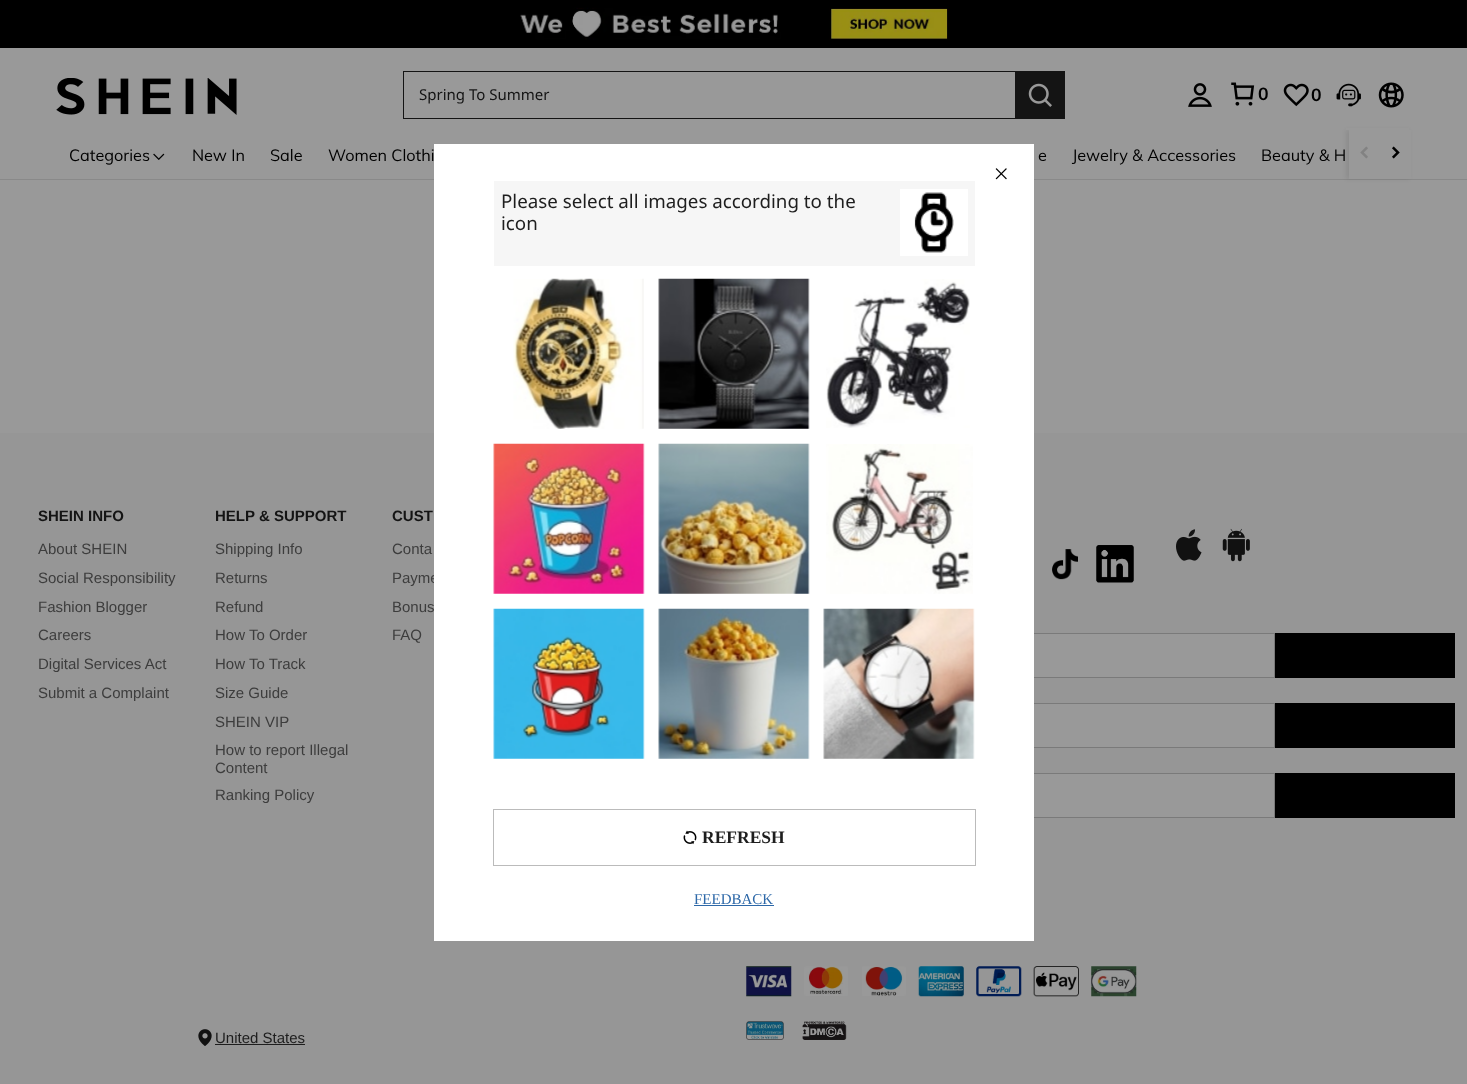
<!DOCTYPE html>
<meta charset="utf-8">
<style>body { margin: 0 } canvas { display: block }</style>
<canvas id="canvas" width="1467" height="1084"></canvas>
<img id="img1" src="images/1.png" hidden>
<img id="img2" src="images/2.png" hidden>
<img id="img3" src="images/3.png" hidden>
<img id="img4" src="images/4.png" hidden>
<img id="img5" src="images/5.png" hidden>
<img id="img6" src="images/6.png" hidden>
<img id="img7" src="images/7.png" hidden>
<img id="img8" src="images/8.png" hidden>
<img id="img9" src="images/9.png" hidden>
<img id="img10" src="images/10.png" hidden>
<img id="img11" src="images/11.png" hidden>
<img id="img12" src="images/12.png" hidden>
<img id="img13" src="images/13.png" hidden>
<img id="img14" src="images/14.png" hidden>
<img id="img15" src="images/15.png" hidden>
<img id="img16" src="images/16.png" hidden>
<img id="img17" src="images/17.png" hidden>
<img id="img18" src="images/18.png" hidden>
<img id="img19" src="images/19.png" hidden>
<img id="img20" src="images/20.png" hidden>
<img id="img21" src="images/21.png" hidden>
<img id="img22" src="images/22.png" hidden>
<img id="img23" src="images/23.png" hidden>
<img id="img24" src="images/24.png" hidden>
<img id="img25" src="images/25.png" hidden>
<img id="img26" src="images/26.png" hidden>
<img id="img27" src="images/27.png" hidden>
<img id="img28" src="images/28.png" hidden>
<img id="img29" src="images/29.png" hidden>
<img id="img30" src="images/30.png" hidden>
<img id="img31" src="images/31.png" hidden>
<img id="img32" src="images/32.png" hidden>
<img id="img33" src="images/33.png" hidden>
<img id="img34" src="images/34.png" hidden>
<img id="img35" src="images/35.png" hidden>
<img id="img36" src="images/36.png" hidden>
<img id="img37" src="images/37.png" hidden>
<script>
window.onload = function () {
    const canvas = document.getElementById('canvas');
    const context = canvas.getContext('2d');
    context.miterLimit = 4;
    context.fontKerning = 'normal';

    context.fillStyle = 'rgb(153, 153, 153)';
    context.fillRect(0, 0, 1467, 1084);
    context.drawImage(document.getElementById('img1'), 0, 0, 1467, 48);
    context.fillStyle = 'rgb(137, 137, 137)';
    context.fillRect(0, 179, 1467, 1);
    context.fillStyle = 'rgba(0, 0, 0, 0.08)';
    context.filter = 'blur(2px)';
    context.beginPath();
    context.rect(1346, 130, 63, 49);
    context.fill();
    context.filter = 'none';
    context.fillStyle = 'rgb(153, 153, 153)';
    context.fillRect(1346, 128, 63, 2);
    context.drawImage(document.getElementById('img2'), 56, 78, 181, 37);
    context.fillStyle = 'rgb(20, 20, 20)';
    context.fillRect(403, 71, 612, 1);
    context.fillRect(403, 118, 612, 1);
    context.fillRect(403, 71, 1, 48);
    context.fillRect(1015, 71, 50, 48);
    context.drawImage(document.getElementById('img3'), 1028, 83, 24, 24);
    context.drawImage(document.getElementById('img4'), 1188, 83, 24, 24);
    context.drawImage(document.getElementById('img5'), 1231, 82, 24, 24);
    context.drawImage(document.getElementById('img6'), 1283, 83, 26, 24);
    context.drawImage(document.getElementById('img7'), 1336, 83, 25, 24);
    context.drawImage(document.getElementById('img8'), 1378, 82, 26, 26);
    context.drawImage(document.getElementById('img9'), 153, 153, 12, 7);
    context.fillStyle = 'rgb(153, 153, 153)';
    context.fillRect(1349, 130, 62, 49);
    context.drawImage(document.getElementById('img10'), 1360, 146, 8, 13);
    context.drawImage(document.getElementById('img11'), 1392, 146, 8, 13);
    context.fillStyle = 'rgb(150, 150, 150)';
    context.fillRect(0, 433, 1467, 651);
    context.drawImage(document.getElementById('img12'), 1052, 549, 26, 31);
    context.drawImage(document.getElementById('img13'), 1096, 545, 38, 38);
    context.drawImage(document.getElementById('img14'), 1176, 529, 26, 32);
    context.drawImage(document.getElementById('img15'), 1222, 528, 28, 34);
    context.fillStyle = 'rgb(153, 153, 153)';
    context.fillRect(1034, 634, 240, 43);
    context.strokeStyle = 'rgb(122, 122, 122)';
    context.strokeRect(746.5, 633.5, 528, 44);
    context.fillStyle = 'rgb(0, 0, 0)';
    context.fillRect(1275, 633, 180, 45);
    context.fillStyle = 'rgb(153, 153, 153)';
    context.fillRect(1034, 704, 240, 43);
    context.strokeRect(846.5, 703.5, 428, 44);
    context.fillStyle = 'rgb(0, 0, 0)';
    context.fillRect(1275, 703, 180, 45);
    context.fillStyle = 'rgb(153, 153, 153)';
    context.fillRect(1034, 774, 240, 43);
    context.strokeRect(846.5, 773.5, 428, 44);
    context.fillStyle = 'rgb(0, 0, 0)';
    context.fillRect(1275, 773, 180, 45);
    context.drawImage(document.getElementById('img16'), 746, 966, 46, 31);
    context.drawImage(document.getElementById('img17'), 804, 966, 44, 30);
    context.drawImage(document.getElementById('img18'), 862, 966, 44, 30);
    context.drawImage(document.getElementById('img19'), 918, 966, 46, 31);
    context.drawImage(document.getElementById('img20'), 976, 966, 46, 31);
    context.drawImage(document.getElementById('img21'), 1033, 966, 46, 31);
    context.drawImage(document.getElementById('img22'), 1091, 966, 46, 31);
    context.drawImage(document.getElementById('img23'), 198, 1029, 14, 17);
    context.fillStyle = 'rgb(30, 30, 30)';
    context.fillRect(215, 1044, 90, 1);
    context.drawImage(document.getElementById('img24'), 746, 1021, 38, 19);
    context.drawImage(document.getElementById('img25'), 802, 1021, 45, 19);
    context.fillStyle = 'rgba(0, 0, 0, 0.3)';
    context.filter = 'blur(0.5px)';
    context.beginPath();
    context.rect(434, 144, 600, 797);
    context.fill();
    context.filter = 'none';
    context.font = '15px Noto Sans';
    context.fillStyle = 'rgb(20, 20, 20)';
    context.fillText('Spring To Summer', 419, 100);
    context.font = 'bold 17.5px Muli';
    context.fillStyle = 'rgb(0, 0, 0)';
    context.fillText('0', 1258, 100);
    context.fillText('0', 1311, 101);
    context.font = '16.25px Muli';
    context.fillText('Categories', 69, 161);
    context.fillText('New In', 192, 161);
    context.fillText('Sale', 270, 161);
    context.fillText('Women Clothi', 328, 161);
    context.fillText('e', 1038, 161);
    context.fillText('Jewelry & Accessories', 1072, 161);
    context.fillText('Beauty & H', 1261, 161);
    context.font = 'bold 15px Liberation Sans';
    context.fillStyle = 'rgb(20, 20, 20)';
    context.fillText('SHEIN INFO', 38, 521);
    context.font = '15px Liberation Sans';
    context.fillStyle = 'rgb(61, 61, 61)';
    context.fillText('About SHEIN', 38, 554);
    context.fillText('Social Responsibility', 38, 583);
    context.fillText('Fashion Blogger', 38, 612);
    context.fillText('Careers', 38, 640);
    context.fillText('Digital Services Act', 38, 669);
    context.fillText('Submit a Complaint', 38, 698);
    context.font = 'bold 15px Liberation Sans';
    context.fillStyle = 'rgb(20, 20, 20)';
    context.fillText('HELP & SUPPORT', 215, 521);
    context.font = '15px Liberation Sans';
    context.fillStyle = 'rgb(61, 61, 61)';
    context.fillText('Shipping Info', 215, 554);
    context.fillText('Returns', 215, 583);
    context.fillText('Refund', 215, 612);
    context.fillText('How To Order', 215, 640);
    context.fillText('How To Track', 215, 669);
    context.fillText('Size Guide', 215, 698);
    context.fillText('SHEIN VIP', 215, 727);
    context.fillText('How to report Illegal', 215, 755);
    context.fillText('Content', 215, 773);
    context.fillText('Ranking Policy', 215, 800);
    context.font = 'bold 15px Liberation Sans';
    context.fillStyle = 'rgb(20, 20, 20)';
    context.fillText('CUST', 392, 521);
    context.font = '15px Liberation Sans';
    context.fillStyle = 'rgb(61, 61, 61)';
    context.fillText('Conta', 392, 554);
    context.fillText('Payme', 392, 583);
    context.fillText('Bonus', 392, 612);
    context.fillText('FAQ', 392, 640);
    context.fillStyle = 'rgb(30, 30, 30)';
    context.fillText('United States', 215, 1043);
    context.fillStyle = 'rgb(255, 255, 255)';
    context.fillRect(434, 144, 600, 797);
    context.drawImage(document.getElementById('img26'), 995, 168, 12, 12);
    context.fillStyle = 'rgb(246, 246, 246)';
    context.fillRect(494, 181, 481, 85);
    context.font = '18.75px Noto Sans';
    context.fillStyle = 'rgb(30, 30, 30)';
    context.fillText('Please select all images according to the', 501, 208);
    context.fillText('icon', 501, 230);
    context.fillStyle = 'rgb(255, 255, 255)';
    context.fillRect(900, 189, 68, 67);
    context.drawImage(document.getElementById('img27'), 914, 192, 40, 61);
    context.drawImage(document.getElementById('img28'), 513, 278, 131, 151);
    context.drawImage(document.getElementById('img29'), 658, 278, 152, 151);
    context.drawImage(document.getElementById('img30'), 826, 279, 144, 149);
    context.drawImage(document.getElementById('img31'), 493, 443, 152, 151);
    context.drawImage(document.getElementById('img32'), 658, 443, 152, 151);
    context.drawImage(document.getElementById('img33'), 826, 444, 147, 150);
    context.drawImage(document.getElementById('img34'), 493, 608, 152, 151);
    context.drawImage(document.getElementById('img35'), 658, 608, 152, 151);
    context.drawImage(document.getElementById('img36'), 823, 608, 152, 151);
    context.strokeStyle = 'rgb(187, 187, 187)';
    context.strokeRect(493.5, 809.5, 482, 56);
    context.drawImage(document.getElementById('img37'), 683, 830, 14, 15);
    context.font = 'bold 17.5px Liberation Serif';
    context.fillStyle = 'rgb(30, 30, 30)';
    context.fillText('REFRESH', 702, 843);
    context.font = '15px Liberation Serif';
    context.fillStyle = 'rgb(45, 104, 168)';
    context.fillText('FEEDBACK', 694, 904);
    context.fillRect(694, 905, 80, 1);
};
</script>
